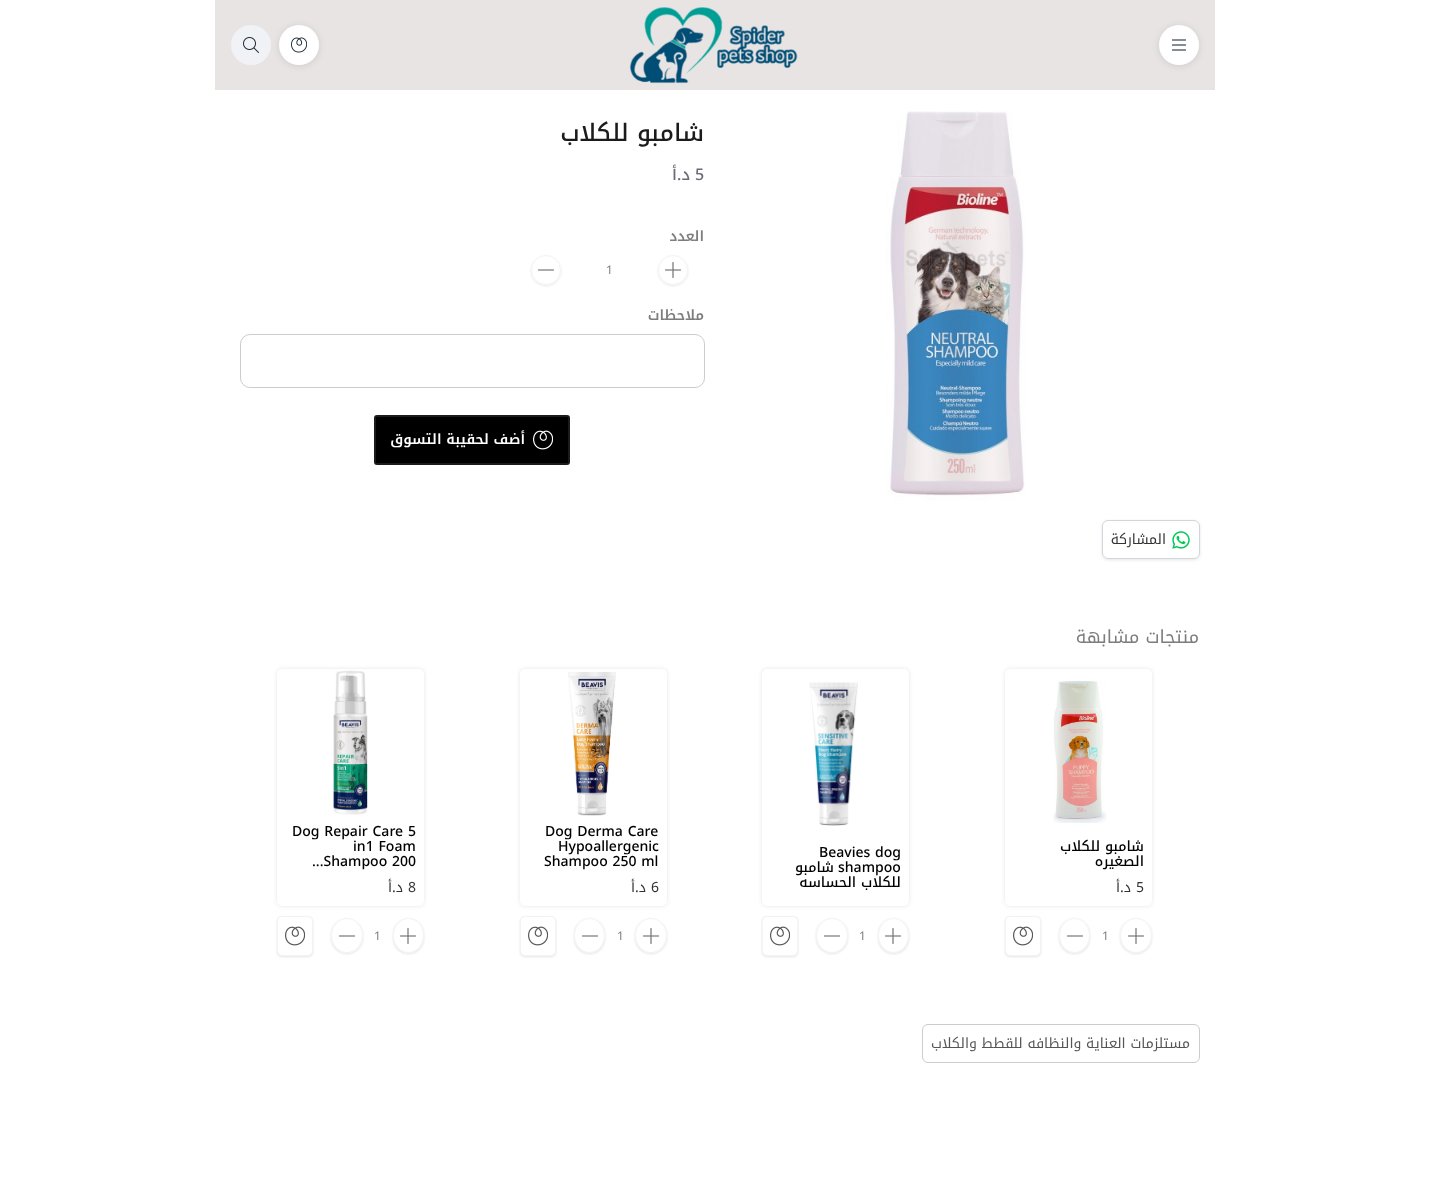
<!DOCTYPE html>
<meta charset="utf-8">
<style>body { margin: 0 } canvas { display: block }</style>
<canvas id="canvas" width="1429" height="1191"></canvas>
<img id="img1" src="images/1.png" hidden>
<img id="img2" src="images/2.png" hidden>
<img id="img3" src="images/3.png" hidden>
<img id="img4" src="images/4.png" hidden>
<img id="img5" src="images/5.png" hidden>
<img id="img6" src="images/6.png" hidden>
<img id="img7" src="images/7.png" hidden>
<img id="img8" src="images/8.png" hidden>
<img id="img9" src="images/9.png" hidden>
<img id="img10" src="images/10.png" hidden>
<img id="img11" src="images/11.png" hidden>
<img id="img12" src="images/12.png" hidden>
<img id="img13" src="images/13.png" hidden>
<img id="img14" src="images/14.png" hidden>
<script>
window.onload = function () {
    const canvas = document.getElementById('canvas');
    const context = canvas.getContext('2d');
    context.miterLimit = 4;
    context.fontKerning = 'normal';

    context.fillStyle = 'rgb(255, 255, 255)';
    context.fillRect(0, 0, 1429, 1191);
    context.fillStyle = 'rgb(233, 228, 228)';
    context.fillRect(215, 0, 1000, 90);
    context.fillStyle = 'rgba(0, 0, 0, 0.1)';
    context.filter = 'blur(3.5px)';
    context.beginPath();
    context.roundRect(1159, 26, 40, 40, 20);
    context.fill();
    context.filter = 'none';
    context.fillStyle = 'rgb(255, 255, 255)';
    context.beginPath();
    context.arc(1179, 45, 20, 0, 2 * Math.PI);
    context.fill();
    context.drawImage(document.getElementById('img1'), 1172, 39, 14, 12);
    context.drawImage(document.getElementById('img2'), 629, 7, 169, 77);
    context.fillStyle = 'rgba(0, 0, 0, 0.1)';
    context.filter = 'blur(3.5px)';
    context.beginPath();
    context.roundRect(279, 26, 40, 40, 20);
    context.fill();
    context.filter = 'none';
    context.fillStyle = 'rgb(255, 255, 255)';
    context.beginPath();
    context.arc(299, 45, 20, 0, 2 * Math.PI);
    context.fill();
    context.drawImage(document.getElementById('img3'), 291, 37, 16, 16);
    context.fillStyle = 'rgb(240, 242, 245)';
    context.beginPath();
    context.arc(251, 45, 20, 0, 2 * Math.PI);
    context.fill();
    context.drawImage(document.getElementById('img4'), 243, 37, 16, 16);
    context.drawImage(document.getElementById('img5'), 885, 111, 140, 390);
    context.save();
    context.beginPath();
    context.moveTo(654, 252);
    context.lineTo(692, 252);
    context.lineTo(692, 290);
    context.lineTo(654, 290);
    context.closePath();
    context.moveTo(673, 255);
    context.bezierCurveTo(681.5, 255, 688, 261.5, 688, 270);
    context.bezierCurveTo(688, 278.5, 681.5, 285, 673, 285);
    context.bezierCurveTo(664.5, 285, 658, 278.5, 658, 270);
    context.bezierCurveTo(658, 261.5, 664.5, 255, 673, 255);
    context.closePath();
    context.clip('evenodd');
    context.fillStyle = 'rgba(0, 0, 0, 0.1)';
    context.filter = 'blur(1px)';
    context.beginPath();
    context.roundRect(658, 256, 30, 30, 15);
    context.fill();
    context.filter = 'none';
    context.restore();
    context.beginPath();
    context.arc(673, 270, 14.5, 0, 2 * Math.PI);
    context.strokeStyle = 'rgb(243, 243, 243)';
    context.stroke();
    context.drawImage(document.getElementById('img6'), 665, 262, 16, 16);
    context.save();
    context.beginPath();
    context.moveTo(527, 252);
    context.lineTo(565, 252);
    context.lineTo(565, 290);
    context.lineTo(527, 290);
    context.closePath();
    context.moveTo(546, 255);
    context.bezierCurveTo(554.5, 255, 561, 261.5, 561, 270);
    context.bezierCurveTo(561, 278.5, 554.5, 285, 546, 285);
    context.bezierCurveTo(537.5, 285, 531, 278.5, 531, 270);
    context.bezierCurveTo(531, 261.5, 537.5, 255, 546, 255);
    context.closePath();
    context.clip('evenodd');
    context.fillStyle = 'rgba(0, 0, 0, 0.1)';
    context.filter = 'blur(1px)';
    context.beginPath();
    context.roundRect(531, 256, 30, 30, 15);
    context.fill();
    context.filter = 'none';
    context.restore();
    context.beginPath();
    context.arc(546, 270, 14.5, 0, 2 * Math.PI);
    context.stroke();
    context.drawImage(document.getElementById('img7'), 538, 269, 16, 2);
    context.beginPath();
    context.roundRect(240.5, 334.5, 464, 53, 9.5);
    context.strokeStyle = 'rgb(204, 204, 204)';
    context.stroke();
    context.fillStyle = 'rgb(0, 0, 0)';
    context.beginPath();
    context.roundRect(375, 416, 194, 48, 2);
    context.fill();
    context.strokeStyle = 'rgb(27, 27, 27)';
    context.lineWidth = 2;
    context.stroke();
    context.drawImage(document.getElementById('img8'), 533, 430, 20, 20);
    context.save();
    context.beginPath();
    context.moveTo(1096, 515);
    context.lineTo(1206, 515);
    context.lineTo(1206, 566);
    context.lineTo(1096, 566);
    context.closePath();
    context.moveTo(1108, 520);
    context.lineTo(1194, 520);
    context.bezierCurveTo(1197.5, 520, 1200, 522.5, 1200, 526);
    context.lineTo(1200, 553);
    context.bezierCurveTo(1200, 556.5, 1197.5, 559, 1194, 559);
    context.lineTo(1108, 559);
    context.bezierCurveTo(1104.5, 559, 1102, 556.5, 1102, 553);
    context.lineTo(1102, 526);
    context.bezierCurveTo(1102, 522.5, 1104.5, 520, 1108, 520);
    context.closePath();
    context.clip('evenodd');
    context.fillStyle = 'rgba(0, 0, 0, 0.1)';
    context.filter = 'blur(1.5px)';
    context.beginPath();
    context.roundRect(1102, 521, 98, 39, 6);
    context.fill();
    context.filter = 'none';
    context.restore();
    context.beginPath();
    context.roundRect(1102.5, 520.5, 97, 38, 5.5);
    context.strokeStyle = 'rgb(209, 213, 220)';
    context.lineWidth = 1;
    context.stroke();
    context.drawImage(document.getElementById('img9'), 1172, 531, 18, 18);
    context.fillStyle = 'rgba(0, 0, 0, 0.1)';
    context.filter = 'blur(2px)';
    context.beginPath();
    context.roundRect(1005, 669, 147, 237, 5);
    context.fill();
    context.filter = 'none';
    context.fillStyle = 'rgb(255, 255, 255)';
    context.beginPath();
    context.roundRect(1005, 669, 147, 237, 5);
    context.fill();
    context.drawImage(document.getElementById('img10'), 1053, 680, 54, 143);
    context.fillStyle = 'rgba(0, 0, 0, 0.1)';
    context.filter = 'blur(1px)';
    context.beginPath();
    context.roundRect(1120, 919, 32, 35, 16);
    context.fill();
    context.filter = 'none';
    context.fillStyle = 'rgb(255, 255, 255)';
    context.beginPath();
    context.ellipse(1136, 935.5, 16, 17.5, 0, 0, 2 * Math.PI);
    context.fill();
    context.beginPath();
    context.moveTo(1136, 918.5);
    context.bezierCurveTo(1144.5, 918.5, 1151.5, 926, 1151.5, 935.5);
    context.bezierCurveTo(1151.5, 945, 1144.5, 952.5, 1136, 952.5);
    context.bezierCurveTo(1127.5, 952.5, 1120.5, 945, 1120.5, 935.5);
    context.bezierCurveTo(1120.5, 926, 1127.5, 918.5, 1136, 918.5);
    context.closePath();
    context.strokeStyle = 'rgb(243, 243, 243)';
    context.stroke();
    context.drawImage(document.getElementById('img6'), 1128, 928, 16, 16);
    context.fillStyle = 'rgba(0, 0, 0, 0.1)';
    context.filter = 'blur(1px)';
    context.beginPath();
    context.roundRect(1059, 919, 31, 35, 15.5);
    context.fill();
    context.filter = 'none';
    context.fillStyle = 'rgb(255, 255, 255)';
    context.beginPath();
    context.ellipse(1074.5, 935.5, 15.5, 17.5, 0, 0, 2 * Math.PI);
    context.fill();
    context.beginPath();
    context.moveTo(1074.5, 918.5);
    context.bezierCurveTo(1083, 918.5, 1089.5, 926, 1089.5, 935.5);
    context.bezierCurveTo(1089.5, 945, 1083, 952.5, 1074.5, 952.5);
    context.bezierCurveTo(1066, 952.5, 1059.5, 945, 1059.5, 935.5);
    context.bezierCurveTo(1059.5, 926, 1066, 918.5, 1074.5, 918.5);
    context.closePath();
    context.stroke();
    context.drawImage(document.getElementById('img7'), 1067, 935, 16, 2);
    context.fillStyle = 'rgba(0, 0, 0, 0.1)';
    context.filter = 'blur(1px)';
    context.beginPath();
    context.roundRect(1005, 917, 36, 40, 5);
    context.fill();
    context.filter = 'none';
    context.fillStyle = 'rgb(255, 255, 255)';
    context.beginPath();
    context.roundRect(1005.5, 916.5, 35, 39, 4.5);
    context.fill();
    context.stroke();
    context.drawImage(document.getElementById('img11'), 1013, 926, 20, 20);
    context.fillStyle = 'rgba(0, 0, 0, 0.1)';
    context.filter = 'blur(2px)';
    context.beginPath();
    context.roundRect(762, 669, 147, 237, 5);
    context.fill();
    context.filter = 'none';
    context.fillStyle = 'rgb(255, 255, 255)';
    context.beginPath();
    context.roundRect(762, 669, 147, 237, 5);
    context.fill();
    context.drawImage(document.getElementById('img12'), 809, 682, 49, 144);
    context.fillStyle = 'rgba(0, 0, 0, 0.1)';
    context.filter = 'blur(1px)';
    context.beginPath();
    context.roundRect(878, 919, 31, 35, 15.5);
    context.fill();
    context.filter = 'none';
    context.fillStyle = 'rgb(255, 255, 255)';
    context.beginPath();
    context.ellipse(893.5, 935.5, 15.5, 17.5, 0, 0, 2 * Math.PI);
    context.fill();
    context.beginPath();
    context.moveTo(893.5, 918.5);
    context.bezierCurveTo(902, 918.5, 908.5, 926, 908.5, 935.5);
    context.bezierCurveTo(908.5, 945, 902, 952.5, 893.5, 952.5);
    context.bezierCurveTo(885, 952.5, 878.5, 945, 878.5, 935.5);
    context.bezierCurveTo(878.5, 926, 885, 918.5, 893.5, 918.5);
    context.closePath();
    context.stroke();
    context.drawImage(document.getElementById('img6'), 885, 928, 16, 16);
    context.fillStyle = 'rgba(0, 0, 0, 0.1)';
    context.filter = 'blur(1px)';
    context.beginPath();
    context.roundRect(816, 919, 32, 35, 16);
    context.fill();
    context.filter = 'none';
    context.fillStyle = 'rgb(255, 255, 255)';
    context.beginPath();
    context.ellipse(832, 935.5, 16, 17.5, 0, 0, 2 * Math.PI);
    context.fill();
    context.beginPath();
    context.moveTo(832, 918.5);
    context.bezierCurveTo(840.5, 918.5, 847.5, 926, 847.5, 935.5);
    context.bezierCurveTo(847.5, 945, 840.5, 952.5, 832, 952.5);
    context.bezierCurveTo(823.5, 952.5, 816.5, 945, 816.5, 935.5);
    context.bezierCurveTo(816.5, 926, 823.5, 918.5, 832, 918.5);
    context.closePath();
    context.stroke();
    context.drawImage(document.getElementById('img7'), 824, 935, 16, 2);
    context.fillStyle = 'rgba(0, 0, 0, 0.1)';
    context.filter = 'blur(1px)';
    context.beginPath();
    context.roundRect(762, 917, 36, 40, 5);
    context.fill();
    context.filter = 'none';
    context.fillStyle = 'rgb(255, 255, 255)';
    context.beginPath();
    context.roundRect(762.5, 916.5, 35, 39, 4.5);
    context.fill();
    context.stroke();
    context.drawImage(document.getElementById('img11'), 770, 926, 20, 20);
    context.fillStyle = 'rgba(0, 0, 0, 0.1)';
    context.filter = 'blur(2px)';
    context.beginPath();
    context.roundRect(520, 669, 147, 237, 5);
    context.fill();
    context.filter = 'none';
    context.fillStyle = 'rgb(255, 255, 255)';
    context.beginPath();
    context.roundRect(520, 669, 147, 237, 5);
    context.fill();
    context.drawImage(document.getElementById('img13'), 568, 672, 48, 144);
    context.fillStyle = 'rgba(0, 0, 0, 0.1)';
    context.filter = 'blur(1px)';
    context.beginPath();
    context.roundRect(635, 919, 32, 35, 16);
    context.fill();
    context.filter = 'none';
    context.fillStyle = 'rgb(255, 255, 255)';
    context.beginPath();
    context.ellipse(651, 935.5, 16, 17.5, 0, 0, 2 * Math.PI);
    context.fill();
    context.beginPath();
    context.moveTo(651, 918.5);
    context.bezierCurveTo(659.5, 918.5, 666.5, 926, 666.5, 935.5);
    context.bezierCurveTo(666.5, 945, 659.5, 952.5, 651, 952.5);
    context.bezierCurveTo(642.5, 952.5, 635.5, 945, 635.5, 935.5);
    context.bezierCurveTo(635.5, 926, 642.5, 918.5, 651, 918.5);
    context.closePath();
    context.stroke();
    context.drawImage(document.getElementById('img6'), 643, 928, 16, 16);
    context.fillStyle = 'rgba(0, 0, 0, 0.1)';
    context.filter = 'blur(1px)';
    context.beginPath();
    context.roundRect(574, 919, 31, 35, 15.5);
    context.fill();
    context.filter = 'none';
    context.fillStyle = 'rgb(255, 255, 255)';
    context.beginPath();
    context.ellipse(589.5, 935.5, 15.5, 17.5, 0, 0, 2 * Math.PI);
    context.fill();
    context.beginPath();
    context.moveTo(589.5, 918.5);
    context.bezierCurveTo(598, 918.5, 604.5, 926, 604.5, 935.5);
    context.bezierCurveTo(604.5, 945, 598, 952.5, 589.5, 952.5);
    context.bezierCurveTo(581, 952.5, 574.5, 945, 574.5, 935.5);
    context.bezierCurveTo(574.5, 926, 581, 918.5, 589.5, 918.5);
    context.closePath();
    context.stroke();
    context.drawImage(document.getElementById('img7'), 582, 935, 16, 2);
    context.fillStyle = 'rgba(0, 0, 0, 0.1)';
    context.filter = 'blur(1px)';
    context.beginPath();
    context.roundRect(520, 917, 36, 40, 5);
    context.fill();
    context.filter = 'none';
    context.fillStyle = 'rgb(255, 255, 255)';
    context.beginPath();
    context.roundRect(520.5, 916.5, 35, 39, 4.5);
    context.fill();
    context.stroke();
    context.drawImage(document.getElementById('img11'), 528, 926, 20, 20);
    context.fillStyle = 'rgba(0, 0, 0, 0.1)';
    context.filter = 'blur(2px)';
    context.beginPath();
    context.roundRect(277, 669, 147, 237, 5);
    context.fill();
    context.filter = 'none';
    context.fillStyle = 'rgb(255, 255, 255)';
    context.beginPath();
    context.roundRect(277, 669, 147, 237, 5);
    context.fill();
    context.drawImage(document.getElementById('img14'), 333, 670, 35, 145);
    context.fillStyle = 'rgba(0, 0, 0, 0.1)';
    context.filter = 'blur(1px)';
    context.beginPath();
    context.roundRect(393, 919, 31, 35, 15.5);
    context.fill();
    context.filter = 'none';
    context.fillStyle = 'rgb(255, 255, 255)';
    context.beginPath();
    context.ellipse(408.5, 935.5, 15.5, 17.5, 0, 0, 2 * Math.PI);
    context.fill();
    context.beginPath();
    context.moveTo(408.5, 918.5);
    context.bezierCurveTo(417, 918.5, 423.5, 926, 423.5, 935.5);
    context.bezierCurveTo(423.5, 945, 417, 952.5, 408.5, 952.5);
    context.bezierCurveTo(400, 952.5, 393.5, 945, 393.5, 935.5);
    context.bezierCurveTo(393.5, 926, 400, 918.5, 408.5, 918.5);
    context.closePath();
    context.stroke();
    context.drawImage(document.getElementById('img6'), 400, 928, 16, 16);
    context.fillStyle = 'rgba(0, 0, 0, 0.1)';
    context.filter = 'blur(1px)';
    context.beginPath();
    context.roundRect(331, 919, 32, 35, 16);
    context.fill();
    context.filter = 'none';
    context.fillStyle = 'rgb(255, 255, 255)';
    context.beginPath();
    context.ellipse(347, 935.5, 16, 17.5, 0, 0, 2 * Math.PI);
    context.fill();
    context.beginPath();
    context.moveTo(347, 918.5);
    context.bezierCurveTo(355.5, 918.5, 362.5, 926, 362.5, 935.5);
    context.bezierCurveTo(362.5, 945, 355.5, 952.5, 347, 952.5);
    context.bezierCurveTo(338.5, 952.5, 331.5, 945, 331.5, 935.5);
    context.bezierCurveTo(331.5, 926, 338.5, 918.5, 347, 918.5);
    context.closePath();
    context.stroke();
    context.drawImage(document.getElementById('img7'), 339, 935, 16, 2);
    context.fillStyle = 'rgba(0, 0, 0, 0.1)';
    context.filter = 'blur(1px)';
    context.beginPath();
    context.roundRect(277, 917, 36, 40, 5);
    context.fill();
    context.filter = 'none';
    context.fillStyle = 'rgb(255, 255, 255)';
    context.beginPath();
    context.roundRect(277.5, 916.5, 35, 39, 4.5);
    context.fill();
    context.stroke();
    context.drawImage(document.getElementById('img11'), 285, 926, 20, 20);
    context.beginPath();
    context.roundRect(922.5, 1024.5, 277, 38, 5.5);
    context.strokeStyle = 'rgb(204, 204, 204)';
    context.stroke();
    context.direction = 'rtl';
    context.font = '500 24px Noto Kufi Arabic';
    context.fillStyle = 'rgb(27, 27, 27)';
    context.fillText('شامبو للكلاب', 704, 141);
    context.direction = 'ltr';
    context.font = '500 16px Noto Kufi Arabic';
    context.fillStyle = 'rgb(108, 106, 116)';
    context.fillText('5', 695, 180);
    context.direction = 'rtl';
    context.fillText('د.أ', 690, 180);
    context.font = '600 14px Noto Kufi Arabic';
    context.fillStyle = 'rgb(125, 125, 125)';
    context.fillText('العدد', 704, 241);
    context.direction = 'ltr';
    context.font = '12px Noto Kufi Arabic';
    context.fillText('1', 606, 274);
    context.direction = 'rtl';
    context.font = '600 14px Noto Kufi Arabic';
    context.fillText('ملاحظات', 704, 320);
    context.fillStyle = 'rgb(255, 255, 255)';
    context.fillText('أضف لحقيبة التسوق', 525, 444);
    context.font = '14px Noto Kufi Arabic';
    context.fillStyle = 'rgb(51, 51, 51)';
    context.fillText('المشاركة', 1166, 544);
    context.font = '18px Noto Kufi Arabic';
    context.fillStyle = 'rgb(125, 125, 125)';
    context.fillText('منتجات مشابهة', 1199, 643);
    context.font = '500 14px Noto Kufi Arabic';
    context.fillStyle = 'rgb(0, 0, 0)';
    context.fillText('شامبو للكلاب', 1144, 851);
    context.fillText('الصغيره', 1144, 866);
    context.direction = 'ltr';
    context.font = '14px Noto Kufi Arabic';
    context.fillStyle = 'rgb(51, 51, 51)';
    context.fillText('5', 1136, 892);
    context.direction = 'rtl';
    context.fillText('د.أ', 1131, 892);
    context.direction = 'ltr';
    context.font = '12px Noto Kufi Arabic';
    context.fillStyle = 'rgb(125, 125, 125)';
    context.fillText('1', 1102, 940);
    context.font = '500 14px Noto Kufi Arabic';
    context.fillStyle = 'rgb(0, 0, 0)';
    context.fillText('Beavies dog', 819, 857);
    context.fillText('shampoo', 838, 872);
    context.direction = 'rtl';
    context.fillText('شامبو', 834, 872);
    context.fillText('للكلاب الحساسه', 901, 887);
    context.direction = 'ltr';
    context.font = '12px Noto Kufi Arabic';
    context.fillStyle = 'rgb(125, 125, 125)';
    context.fillText('1', 859, 940);
    context.font = '500 14px Noto Kufi Arabic';
    context.fillStyle = 'rgb(0, 0, 0)';
    context.fillText('Dog Derma Care', 545, 836);
    context.fillText('Hypoallergenic', 558, 851);
    context.fillText('Shampoo 250 ml', 544, 866);
    context.font = '14px Noto Kufi Arabic';
    context.fillStyle = 'rgb(51, 51, 51)';
    context.fillText('6', 651, 892);
    context.direction = 'rtl';
    context.fillText('د.أ', 646, 892);
    context.direction = 'ltr';
    context.font = '12px Noto Kufi Arabic';
    context.fillStyle = 'rgb(125, 125, 125)';
    context.fillText('1', 617, 940);
    context.font = '500 14px Noto Kufi Arabic';
    context.fillStyle = 'rgb(0, 0, 0)';
    context.fillText('Dog Repair Care 5', 292, 836);
    context.fillText('in1 Foam', 353, 851);
    context.fillText('...Shampoo 200', 312, 866);
    context.font = '14px Noto Kufi Arabic';
    context.fillStyle = 'rgb(51, 51, 51)';
    context.fillText('8', 408, 892);
    context.direction = 'rtl';
    context.fillText('د.أ', 403, 892);
    context.direction = 'ltr';
    context.font = '12px Noto Kufi Arabic';
    context.fillStyle = 'rgb(125, 125, 125)';
    context.fillText('1', 374, 940);
    context.direction = 'rtl';
    context.font = '14px Noto Kufi Arabic';
    context.fillStyle = 'rgb(85, 85, 85)';
    context.fillText('مستلزمات العناية والنظافه للقطط والكلاب', 1190, 1048);
};
</script>
